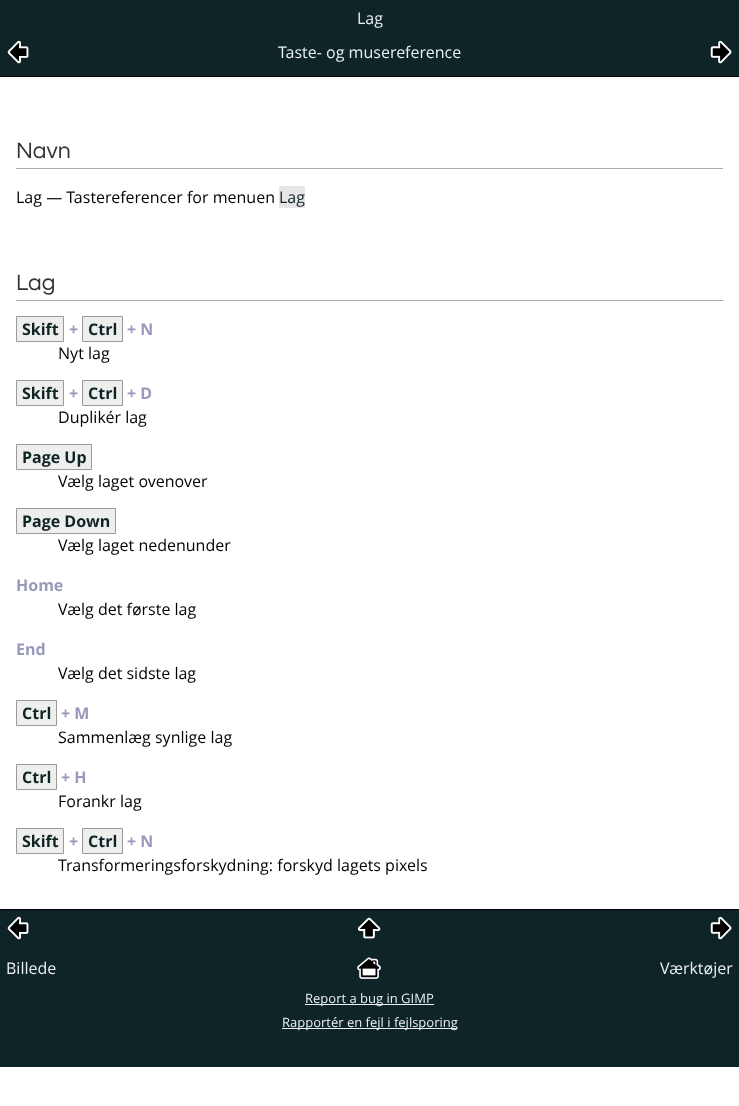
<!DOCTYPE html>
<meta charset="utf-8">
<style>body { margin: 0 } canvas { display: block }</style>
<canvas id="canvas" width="739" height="1106"></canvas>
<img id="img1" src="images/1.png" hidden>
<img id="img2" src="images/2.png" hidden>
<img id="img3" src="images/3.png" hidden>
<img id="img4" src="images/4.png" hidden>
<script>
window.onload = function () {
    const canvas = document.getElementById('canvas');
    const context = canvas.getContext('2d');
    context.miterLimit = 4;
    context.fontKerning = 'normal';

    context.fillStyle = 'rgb(255, 255, 255)';
    context.fillRect(0, 0, 739, 1106);
    context.fillStyle = 'rgb(14, 36, 38)';
    context.fillRect(0, 0, 739, 76);
    context.fillStyle = 'rgb(0, 0, 0)';
    context.fillRect(0, 76, 739, 1);
    context.drawImage(document.getElementById('img1'), 7, 40, 22, 24);
    context.drawImage(document.getElementById('img2'), 710, 40, 22, 24);
    context.fillStyle = 'rgb(170, 170, 170)';
    context.fillRect(16, 168, 707, 1);
    context.fillStyle = 'rgb(230, 230, 230)';
    context.fillRect(279, 186, 26, 22);
    context.fillStyle = 'rgb(170, 170, 170)';
    context.fillRect(16, 300, 707, 1);
    context.fillStyle = 'rgb(238, 238, 236)';
    context.beginPath();
    context.rect(16.5, 316.5, 47, 25);
    context.fill();
    context.strokeStyle = 'rgb(153, 153, 153)';
    context.stroke();
    context.beginPath();
    context.rect(82.5, 316.5, 40, 25);
    context.fill();
    context.stroke();
    context.beginPath();
    context.rect(16.5, 380.5, 47, 25);
    context.fill();
    context.stroke();
    context.beginPath();
    context.rect(82.5, 380.5, 40, 25);
    context.fill();
    context.stroke();
    context.beginPath();
    context.rect(16.5, 444.5, 75, 25);
    context.fill();
    context.stroke();
    context.beginPath();
    context.rect(16.5, 508.5, 99, 25);
    context.fill();
    context.stroke();
    context.beginPath();
    context.rect(16.5, 700.5, 40, 25);
    context.fill();
    context.stroke();
    context.beginPath();
    context.rect(16.5, 764.5, 40, 25);
    context.fill();
    context.stroke();
    context.beginPath();
    context.rect(16.5, 828.5, 47, 25);
    context.fill();
    context.stroke();
    context.beginPath();
    context.rect(82.5, 828.5, 40, 25);
    context.fill();
    context.stroke();
    context.fillStyle = 'rgb(14, 36, 38)';
    context.fillRect(0, 910, 739, 157);
    context.fillStyle = 'rgb(0, 0, 0)';
    context.fillRect(0, 909, 739, 1);
    context.drawImage(document.getElementById('img1'), 7, 916, 22, 24);
    context.drawImage(document.getElementById('img3'), 357, 917, 24, 22);
    context.drawImage(document.getElementById('img2'), 710, 916, 22, 24);
    context.drawImage(document.getElementById('img4'), 357, 957, 24, 22);
    context.fillStyle = 'rgb(236, 240, 241)';
    context.fillRect(305, 1004, 129, 1);
    context.fillRect(282, 1028, 175, 1);
    context.font = '16px Open Sans';
    context.fillText('Lag', 357, 24);
    context.fillText('Taste- og musereference', 278, 58);
    context.font = '23px Questrial';
    context.fillStyle = 'rgb(51, 51, 51)';
    context.fillText('Navn', 16, 158);
    context.font = '16px Open Sans';
    context.fillStyle = 'rgb(0, 0, 0)';
    context.fillText('Lag — Tastereferencer for menuen', 16, 203);
    context.fillStyle = 'rgb(14, 36, 38)';
    context.fillText('Lag', 279, 203);
    context.font = '23px Questrial';
    context.fillStyle = 'rgb(51, 51, 51)';
    context.fillText('Lag', 16, 290);
    context.font = 'bold 16px Open Sans';
    context.fillStyle = 'rgb(14, 36, 38)';
    context.fillText('Skift', 22, 335);
    context.fillStyle = 'rgb(153, 153, 187)';
    context.fillText('+', 69, 335);
    context.fillStyle = 'rgb(14, 36, 38)';
    context.fillText('Ctrl', 88, 335);
    context.fillStyle = 'rgb(153, 153, 187)';
    context.fillText('+ N', 127, 335);
    context.font = '16px Open Sans';
    context.fillStyle = 'rgb(0, 0, 0)';
    context.fillText('Nyt lag', 58, 359);
    context.font = 'bold 16px Open Sans';
    context.fillStyle = 'rgb(14, 36, 38)';
    context.fillText('Skift', 22, 399);
    context.fillStyle = 'rgb(153, 153, 187)';
    context.fillText('+', 69, 399);
    context.fillStyle = 'rgb(14, 36, 38)';
    context.fillText('Ctrl', 88, 399);
    context.fillStyle = 'rgb(153, 153, 187)';
    context.fillText('+ D', 127, 399);
    context.font = '16px Open Sans';
    context.fillStyle = 'rgb(0, 0, 0)';
    context.fillText('Duplikér lag', 58, 423);
    context.font = 'bold 16px Open Sans';
    context.fillStyle = 'rgb(14, 36, 38)';
    context.fillText('Page Up', 22, 463);
    context.font = '16px Open Sans';
    context.fillStyle = 'rgb(0, 0, 0)';
    context.fillText('Vælg laget ovenover', 58, 487);
    context.font = 'bold 16px Open Sans';
    context.fillStyle = 'rgb(14, 36, 38)';
    context.fillText('Page Down', 22, 527);
    context.font = '16px Open Sans';
    context.fillStyle = 'rgb(0, 0, 0)';
    context.fillText('Vælg laget nedenunder', 58, 551);
    context.font = 'bold 16px Open Sans';
    context.fillStyle = 'rgb(153, 153, 187)';
    context.fillText('Home', 16, 591);
    context.font = '16px Open Sans';
    context.fillStyle = 'rgb(0, 0, 0)';
    context.fillText('Vælg det første lag', 58, 615);
    context.font = 'bold 16px Open Sans';
    context.fillStyle = 'rgb(153, 153, 187)';
    context.fillText('End', 16, 655);
    context.font = '16px Open Sans';
    context.fillStyle = 'rgb(0, 0, 0)';
    context.fillText('Vælg det sidste lag', 58, 679);
    context.font = 'bold 16px Open Sans';
    context.fillStyle = 'rgb(14, 36, 38)';
    context.fillText('Ctrl', 22, 719);
    context.fillStyle = 'rgb(153, 153, 187)';
    context.fillText('+ M', 61, 719);
    context.font = '16px Open Sans';
    context.fillStyle = 'rgb(0, 0, 0)';
    context.fillText('Sammenlæg synlige lag', 58, 743);
    context.font = 'bold 16px Open Sans';
    context.fillStyle = 'rgb(14, 36, 38)';
    context.fillText('Ctrl', 22, 783);
    context.fillStyle = 'rgb(153, 153, 187)';
    context.fillText('+ H', 61, 783);
    context.font = '16px Open Sans';
    context.fillStyle = 'rgb(0, 0, 0)';
    context.fillText('Forankr lag', 58, 807);
    context.font = 'bold 16px Open Sans';
    context.fillStyle = 'rgb(14, 36, 38)';
    context.fillText('Skift', 22, 847);
    context.fillStyle = 'rgb(153, 153, 187)';
    context.fillText('+', 69, 847);
    context.fillStyle = 'rgb(14, 36, 38)';
    context.fillText('Ctrl', 88, 847);
    context.fillStyle = 'rgb(153, 153, 187)';
    context.fillText('+ N', 127, 847);
    context.font = '16px Open Sans';
    context.fillStyle = 'rgb(0, 0, 0)';
    context.fillText('Transformeringsforskydning: forskyd lagets pixels', 58, 871);
    context.fillStyle = 'rgb(236, 240, 241)';
    context.fillText('Billede', 6, 974);
    context.fillText('Værktøjer', 660, 974);
    context.font = '13px Open Sans';
    context.fillText('Report a bug in GIMP', 305, 1003);
    context.fillText('Rapportér en fejl i fejlsporing', 282, 1027);
};
</script>
